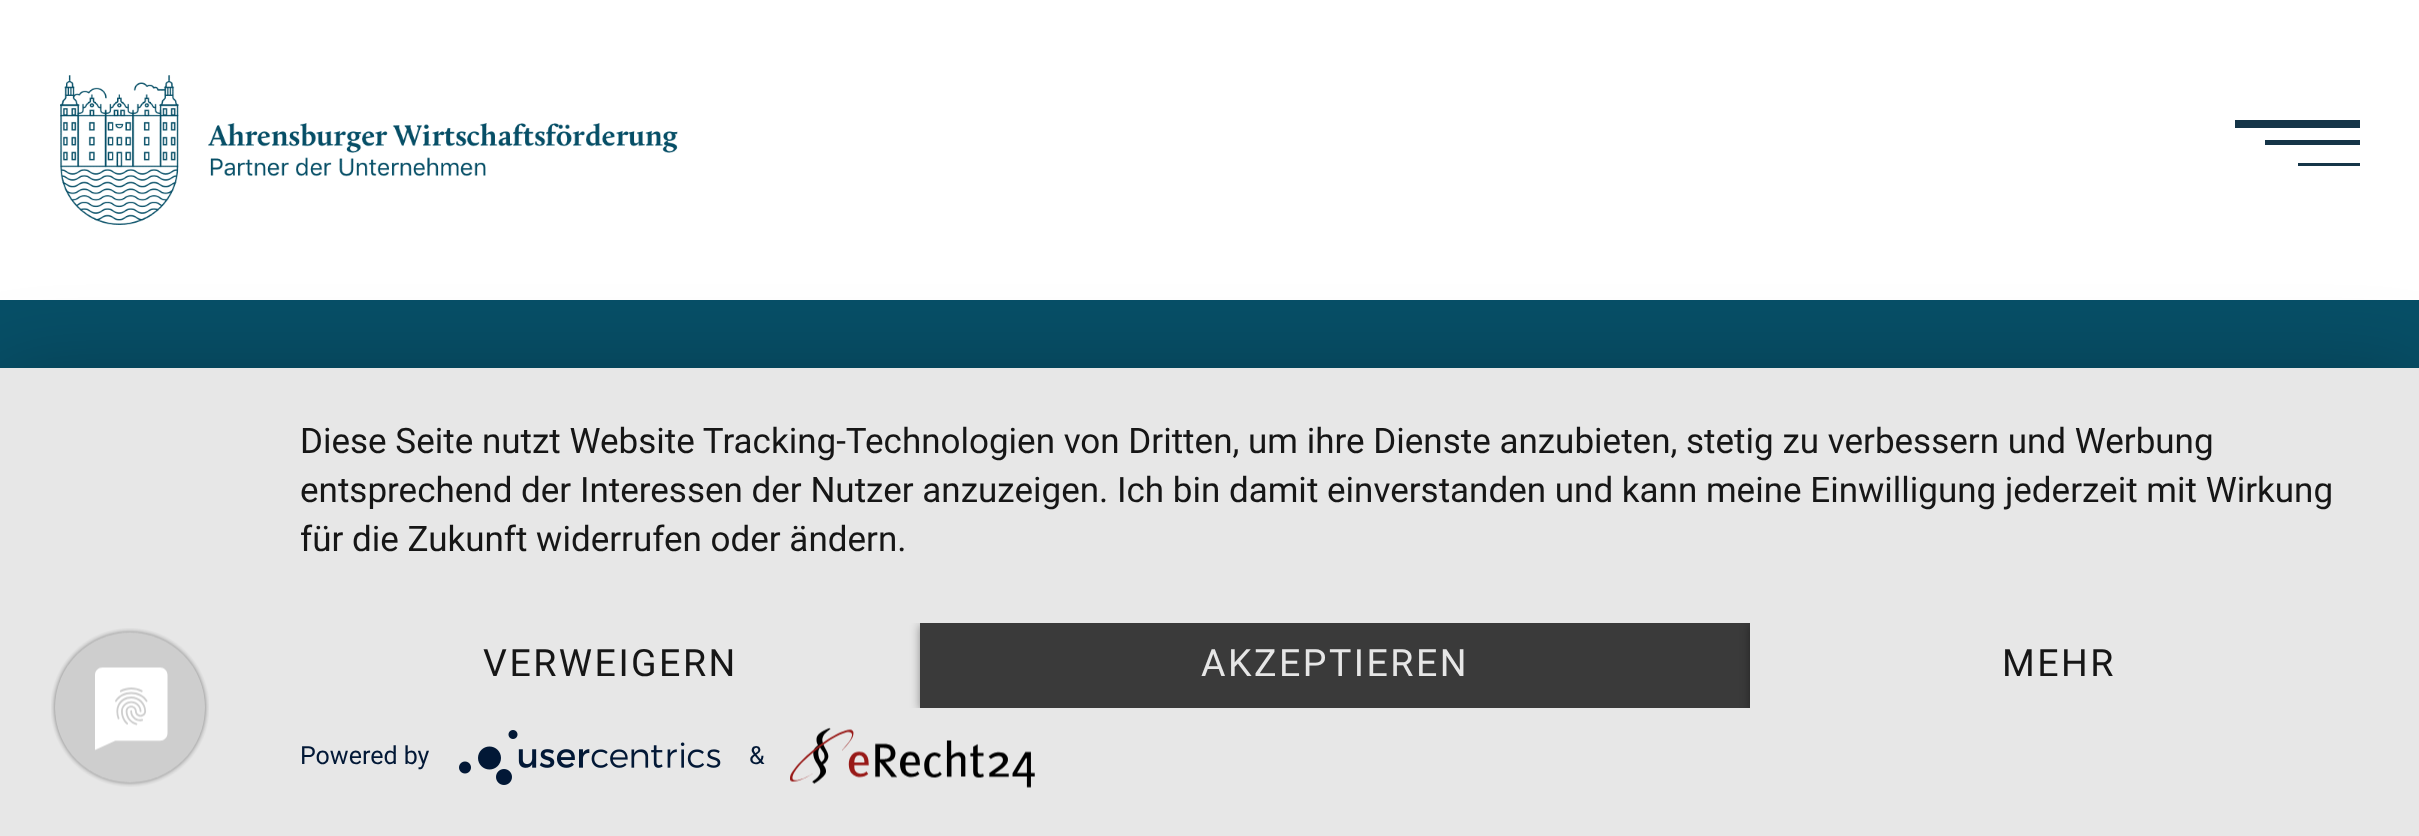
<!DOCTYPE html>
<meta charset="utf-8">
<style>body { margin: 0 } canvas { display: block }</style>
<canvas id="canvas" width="2419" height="836"></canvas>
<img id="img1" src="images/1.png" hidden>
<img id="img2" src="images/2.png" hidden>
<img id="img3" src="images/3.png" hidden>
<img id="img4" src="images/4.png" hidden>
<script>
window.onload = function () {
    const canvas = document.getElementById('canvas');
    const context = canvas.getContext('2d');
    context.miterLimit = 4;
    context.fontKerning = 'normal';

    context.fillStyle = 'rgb(255, 255, 255)';
    context.fillRect(0, 0, 2419, 836);
    context.drawImage(document.getElementById('img1'), 60, 75, 618, 150);
    context.fillStyle = 'rgb(21, 53, 72)';
    context.fillRect(2235, 120, 125, 8);
    context.fillRect(2265, 140, 95, 5);
    context.fillRect(2298, 163, 62, 3);
    context.fillStyle = 'rgb(7, 79, 103)';
    context.fillRect(0, 300, 2419, 68);
    context.fillStyle = 'rgba(0, 0, 0, 0.3)';
    context.filter = 'blur(45px)';
    context.beginPath();
    context.rect(0, 383, 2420, 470);
    context.fill();
    context.filter = 'none';
    context.fillStyle = 'rgb(231, 231, 231)';
    context.fillRect(0, 368, 2419, 468);
    context.drawImage(document.getElementById('img2'), 51, 628, 158, 159);
    context.save();
    context.beginPath();
    context.rect(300, 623, 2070, 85);
    context.clip();
    context.fillStyle = 'rgba(0, 0, 0, 0.4)';
    context.filter = 'blur(5px)';
    context.beginPath();
    context.rect(920, 625, 830, 85);
    context.fill();
    context.filter = 'none';
    context.restore();
    context.fillStyle = 'rgb(58, 58, 58)';
    context.fillRect(920, 623, 830, 85);
    context.save();
    context.beginPath();
    context.rect(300, 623, 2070, 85);
    context.clip();
    context.fillStyle = 'rgba(0, 0, 0, 0.4)';
    context.filter = 'blur(5px)';
    context.beginPath();
    context.rect(1750, 625, 620, 85);
    context.fill();
    context.filter = 'none';
    context.restore();
    context.fillStyle = 'rgb(231, 231, 231)';
    context.fillRect(1750, 623, 620, 85);
    context.drawImage(document.getElementById('img3'), 459, 730, 262, 55);
    context.drawImage(document.getElementById('img4'), 790, 727, 245, 61);
    context.font = '35px Roboto';
    context.fillStyle = 'rgb(22, 22, 22)';
    context.fillText('Diese Seite nutzt Website Tracking-Technologien von Dritten, um ihre Dienste anzubieten, stetig zu verbessern und Werbung', 300, 453);
    context.fillText('entsprechend der Interessen der Nutzer anzuzeigen. Ich bin damit einverstanden und kann meine Einwilligung jederzeit mit Wirkung', 300, 502);
    context.fillText('für die Zukunft widerrufen oder ändern.', 300, 551);
    context.letterSpacing = '2.5px';
    context.font = '37.5px Roboto';
    context.fillText('VERWEIGERN', 483, 676);
    context.fillStyle = 'rgb(230, 230, 230)';
    context.fillText('AKZEPTIEREN', 1201, 676);
    context.fillStyle = 'rgb(22, 22, 22)';
    context.fillText('MEHR', 2002, 676);
    context.letterSpacing = '0px';
    context.font = '25px Roboto';
    context.fillStyle = 'rgb(2, 24, 54)';
    context.fillText('Powered by', 300, 764);
    context.fillText('&', 749, 764);
};
</script>
